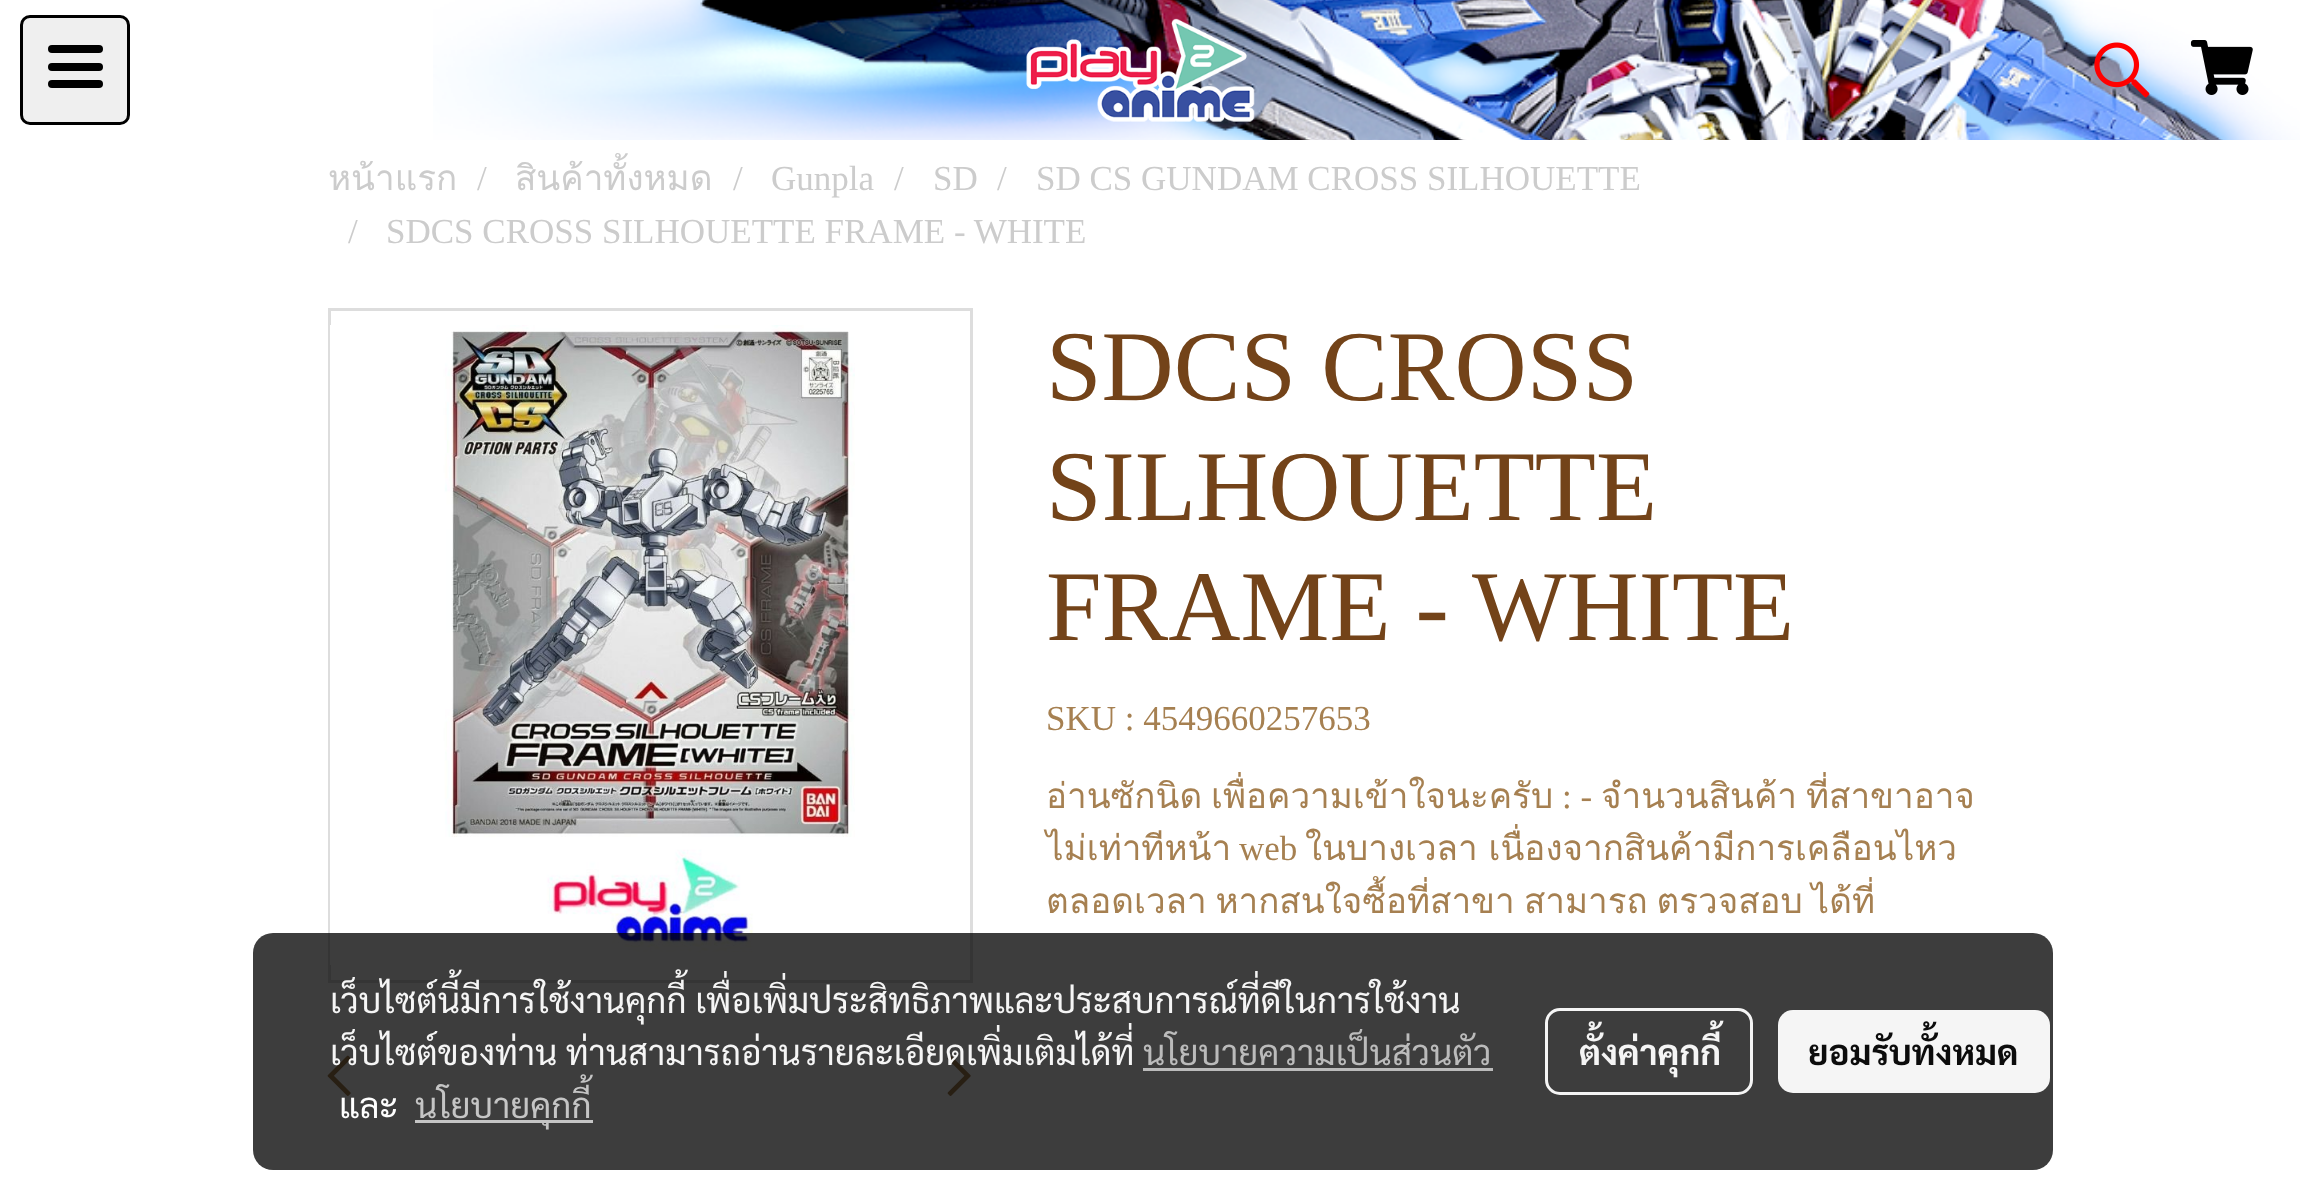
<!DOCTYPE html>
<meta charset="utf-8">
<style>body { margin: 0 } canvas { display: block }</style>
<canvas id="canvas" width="2303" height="1190"></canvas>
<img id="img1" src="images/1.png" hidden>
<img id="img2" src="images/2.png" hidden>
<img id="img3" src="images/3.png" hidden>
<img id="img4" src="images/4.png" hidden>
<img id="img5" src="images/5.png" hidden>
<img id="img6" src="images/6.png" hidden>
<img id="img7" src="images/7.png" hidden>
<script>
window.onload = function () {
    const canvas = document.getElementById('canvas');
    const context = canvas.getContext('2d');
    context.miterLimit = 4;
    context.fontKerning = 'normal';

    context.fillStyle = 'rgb(255, 255, 255)';
    context.fillRect(0, 0, 2303, 1190);
    context.drawImage(document.getElementById('img1'), 433, 0, 1867, 140);
    context.fillStyle = 'rgb(239, 239, 239)';
    context.beginPath();
    context.roundRect(21.5, 16.5, 107, 107, 8.5);
    context.fill();
    context.strokeStyle = 'rgb(0, 0, 0)';
    context.lineWidth = 3;
    context.stroke();
    context.fillStyle = 'rgb(0, 0, 0)';
    context.beginPath();
    context.roundRect(48, 63, 55, 8, 4);
    context.fill();
    context.beginPath();
    context.roundRect(48, 45, 55, 8, 4);
    context.fill();
    context.beginPath();
    context.roundRect(48, 80, 55, 8, 4);
    context.fill();
    context.drawImage(document.getElementById('img2'), 1026, 18, 229, 104);
    context.drawImage(document.getElementById('img3'), 2094, 42, 56, 56);
    context.drawImage(document.getElementById('img4'), 2190, 40, 63, 55);
    context.strokeStyle = 'rgb(221, 221, 221)';
    context.strokeRect(329.5, 309.5, 642, 672);
    context.drawImage(document.getElementById('img5'), 330, 325, 525, 640);
    context.drawImage(document.getElementById('img6'), 327, 1055, 24, 41);
    context.drawImage(document.getElementById('img7'), 947, 1055, 24, 41);
    context.fillStyle = 'rgba(0, 0, 0, 0.76)';
    context.beginPath();
    context.roundRect(253, 933, 1800, 237, 20);
    context.fill();
    context.fillStyle = 'rgba(194, 194, 194, 0.95)';
    context.fillRect(1143, 1068, 350, 3);
    context.fillStyle = 'rgb(197, 197, 197)';
    context.fillRect(415, 1120, 178, 3);
    context.beginPath();
    context.roundRect(1546.5, 1009.5, 205, 84, 13.5);
    context.strokeStyle = 'rgba(255, 255, 255, 0.95)';
    context.stroke();
    context.fillStyle = 'rgba(255, 255, 255, 0.95)';
    context.beginPath();
    context.roundRect(1778, 1010, 272, 83, 15);
    context.fill();
    context.font = '35px Loma';
    context.fillStyle = 'rgb(204, 204, 204)';
    context.fillText('หน้าแรก', 328, 190);
    context.font = '35px Liberation Serif';
    context.fillText('/', 477, 190);
    context.font = '35px Loma';
    context.fillText('สินค้าทั้งหมด', 515, 190);
    context.font = '35px Liberation Serif';
    context.fillText('/', 733, 190);
    context.fillText('Gunpla', 771, 190);
    context.fillText('/', 894, 190);
    context.fillText('SD', 933, 190);
    context.fillText('/', 997, 190);
    context.fillText('SD CS GUNDAM CROSS SILHOUETTE', 1036, 190);
    context.fillText('/', 348, 243);
    context.fillText('SDCS CROSS SILHOUETTE FRAME - WHITE', 386, 243);
    context.font = '100px Liberation Serif';
    context.fillStyle = 'rgb(115, 67, 25)';
    context.fillText('SDCS CROSS', 1046, 400);
    context.fillText('SILHOUETTE', 1046, 520);
    context.fillText('FRAME - WHITE', 1046, 640);
    context.font = '35px Liberation Serif';
    context.fillStyle = 'rgb(166, 128, 81)';
    context.fillText('SKU : 4549660257653', 1046, 730);
    context.font = '35px Loma';
    context.fillText('อ่านซักนิด', 1046, 808);
    context.fillText('เพื่อความเข้าใจนะครับ', 1211, 808);
    context.font = '35px Liberation Serif';
    context.fillText(': -', 1562, 808);
    context.font = '35px Loma';
    context.fillText('จำนวนสินค้า', 1601, 808);
    context.fillText('ที่สาขาอาจ', 1806, 808);
    context.fillText('ไม่เท่าทีหน้า', 1046, 860);
    context.font = '35px Liberation Serif';
    context.fillText('web', 1239, 860);
    context.wordSpacing = '-1px';
    context.font = '35px Loma';
    context.fillText('ในบางเวลา เนื่องจากสินค้ามีการเคลือนไหว', 1305, 860);
    context.wordSpacing = '-3px';
    context.fillText('ตลอดเวลา หากสนใจซื้อที่สาขา', 1046, 913);
    context.fillText('สามารถ ตรวจสอบ ได้ที่', 1524, 913);
    context.wordSpacing = '0px';
    context.font = '35px Sarabun';
    context.fillStyle = 'rgb(245, 245, 245)';
    context.fillText('เว็บไซต์นี้มีการใช้งานคุกกี้ เพื่อเพิ่มประสิทธิภาพและประสบการณ์ที่ดีในการใช้งาน', 330, 1013);
    context.fillText('เว็บไซต์ของท่าน ท่านสามารถอ่านรายละเอียดเพิ่มเติมได้ที่', 330, 1065);
    context.fillStyle = 'rgb(187, 187, 187)';
    context.fillText('นโยบายความเป็นส่วนตัว', 1143, 1065);
    context.fillStyle = 'rgb(255, 255, 255)';
    context.fillText('และ', 339, 1118);
    context.fillStyle = 'rgb(197, 197, 197)';
    context.fillText('นโยบายคุกกี้', 415, 1118);
    context.font = 'bold 35px Sarabun';
    context.fillStyle = 'rgb(245, 245, 245)';
    context.fillText('ตั้งค่าคุกกี้', 1579, 1065);
    context.fillStyle = 'rgb(12, 12, 12)';
    context.fillText('ยอมรับทั้งหมด', 1808, 1065);
};
</script>
